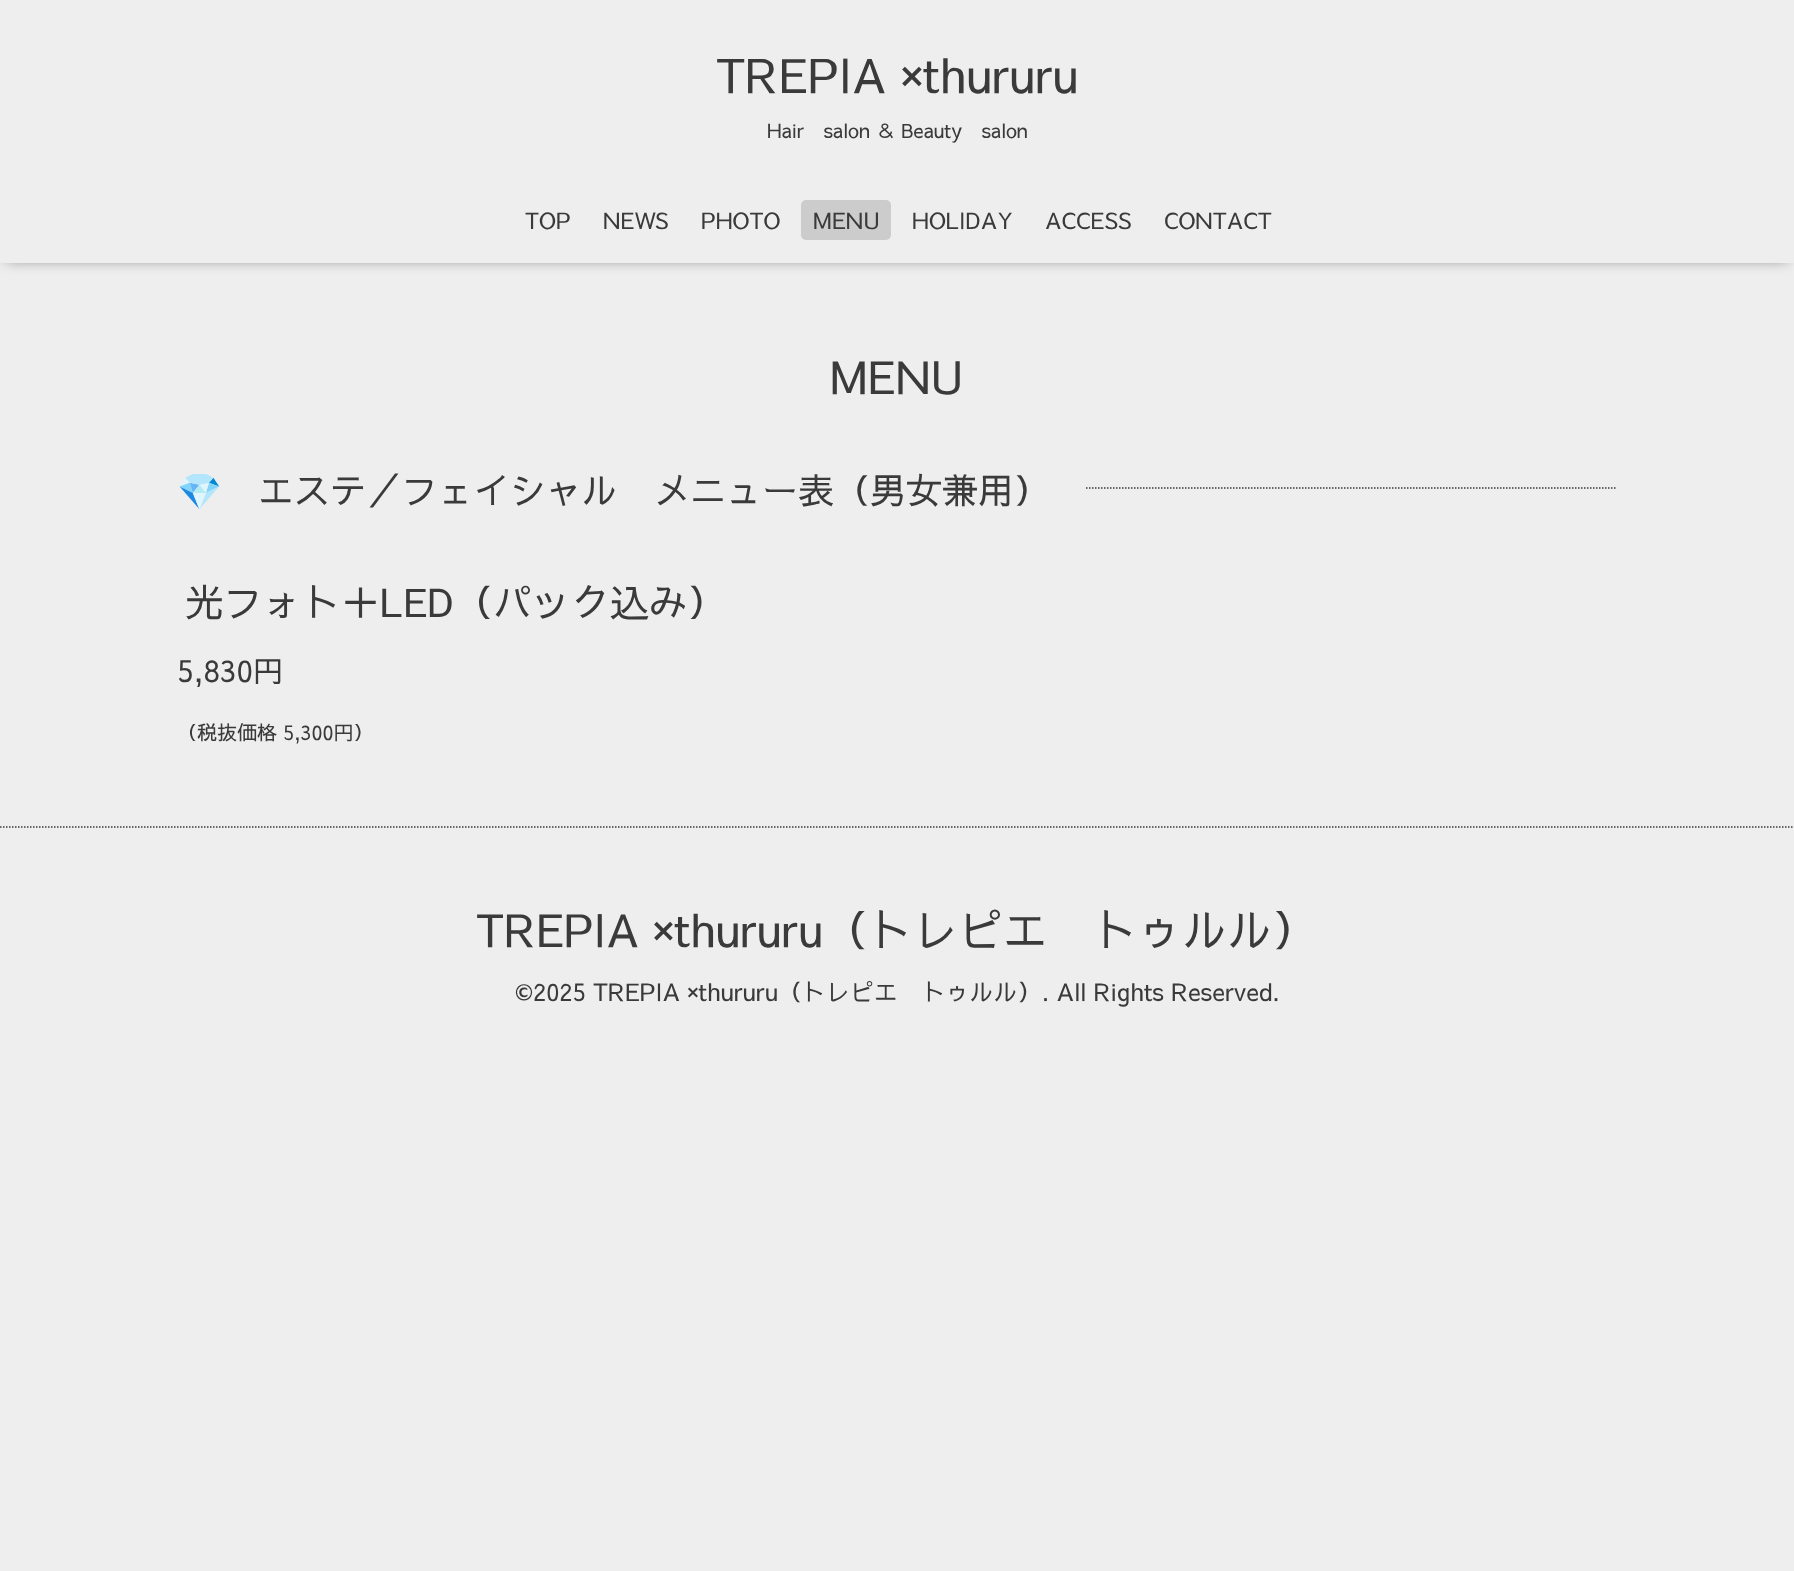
<!DOCTYPE html>
<meta charset="utf-8">
<style>body { margin: 0 } canvas { display: block }</style>
<canvas id="canvas" width="1794" height="1571"></canvas>
<script>
window.onload = function () {
    const canvas = document.getElementById('canvas');
    const context = canvas.getContext('2d');
    context.miterLimit = 4;
    context.fontKerning = 'normal';

    context.fillStyle = 'rgb(238, 238, 238)';
    context.fillRect(0, 0, 1794, 1571);
    context.fillStyle = 'rgba(0, 0, 0, 0.6)';
    context.filter = 'blur(7.5px)';
    context.beginPath();
    context.rect(6, 8, 1782, 250);
    context.fill();
    context.filter = 'none';
    context.fillStyle = 'rgb(238, 238, 238)';
    context.fillRect(0, 0, 1794, 263);
    context.fillStyle = 'rgb(204, 204, 204)';
    context.beginPath();
    context.roundRect(801, 200, 90, 40, 5);
    context.fill();
    context.beginPath();
    context.moveTo(177, 488);
    context.lineTo(1617, 488);
    context.strokeStyle = 'rgb(58, 58, 58)';
    context.lineWidth = 1.5;
    context.setLineDash([1.5, 1.5]);
    context.stroke();
    context.fillStyle = 'rgb(238, 238, 238)';
    context.fillRect(177, 487, 908, 2);
    context.beginPath();
    context.moveTo(0, 827);
    context.lineTo(1794, 827);
    context.stroke();
    context.font = '47px Sawarabi Gothic';
    context.fillStyle = 'rgb(58, 58, 58)';
    context.fillText('TREPIA ×thururu', 716, 93);
    context.font = '19.5px Sawarabi Gothic';
    context.fillText('Hair　salon ＆ Beauty　salon', 767, 138);
    context.font = '22.5px Sawarabi Gothic';
    context.fillText('TOP', 525, 229);
    context.fillText('NEWS', 603, 229);
    context.fillText('PHOTO', 701, 229);
    context.fillText('MENU', 813, 229);
    context.fillText('HOLIDAY', 912, 229);
    context.fillText('ACCESS', 1045, 229);
    context.fillText('CONTACT', 1164, 229);
    context.font = '45px Sawarabi Gothic';
    context.fillText('MENU', 830, 394);
    context.font = '36px Noto Color Emoji';
    context.fillText('💎', 177, 504);
    context.font = '36px Sawarabi Gothic';
    context.fillText('エステ／フェイシャル　メニュー表（男女兼用）', 258, 504);
    context.font = '39px Sawarabi Gothic';
    context.fillText('光フォト＋LED（パック込み）', 185, 617);
    context.font = '30px Sawarabi Gothic';
    context.fillText('5,830円', 177, 682);
    context.font = '20px Sawarabi Gothic';
    context.fillText('（税抜価格 5,300円）', 177, 740);
    context.font = '45px Sawarabi Gothic';
    context.fillText('TREPIA ×thururu（トレピエ　トゥルル）', 476, 947);
    context.font = '24px Sawarabi Gothic';
    context.fillText('©2025 TREPIA ×thururu（トレピエ　トゥルル）. All Rights Reserved.', 515, 1001);
};
</script>
